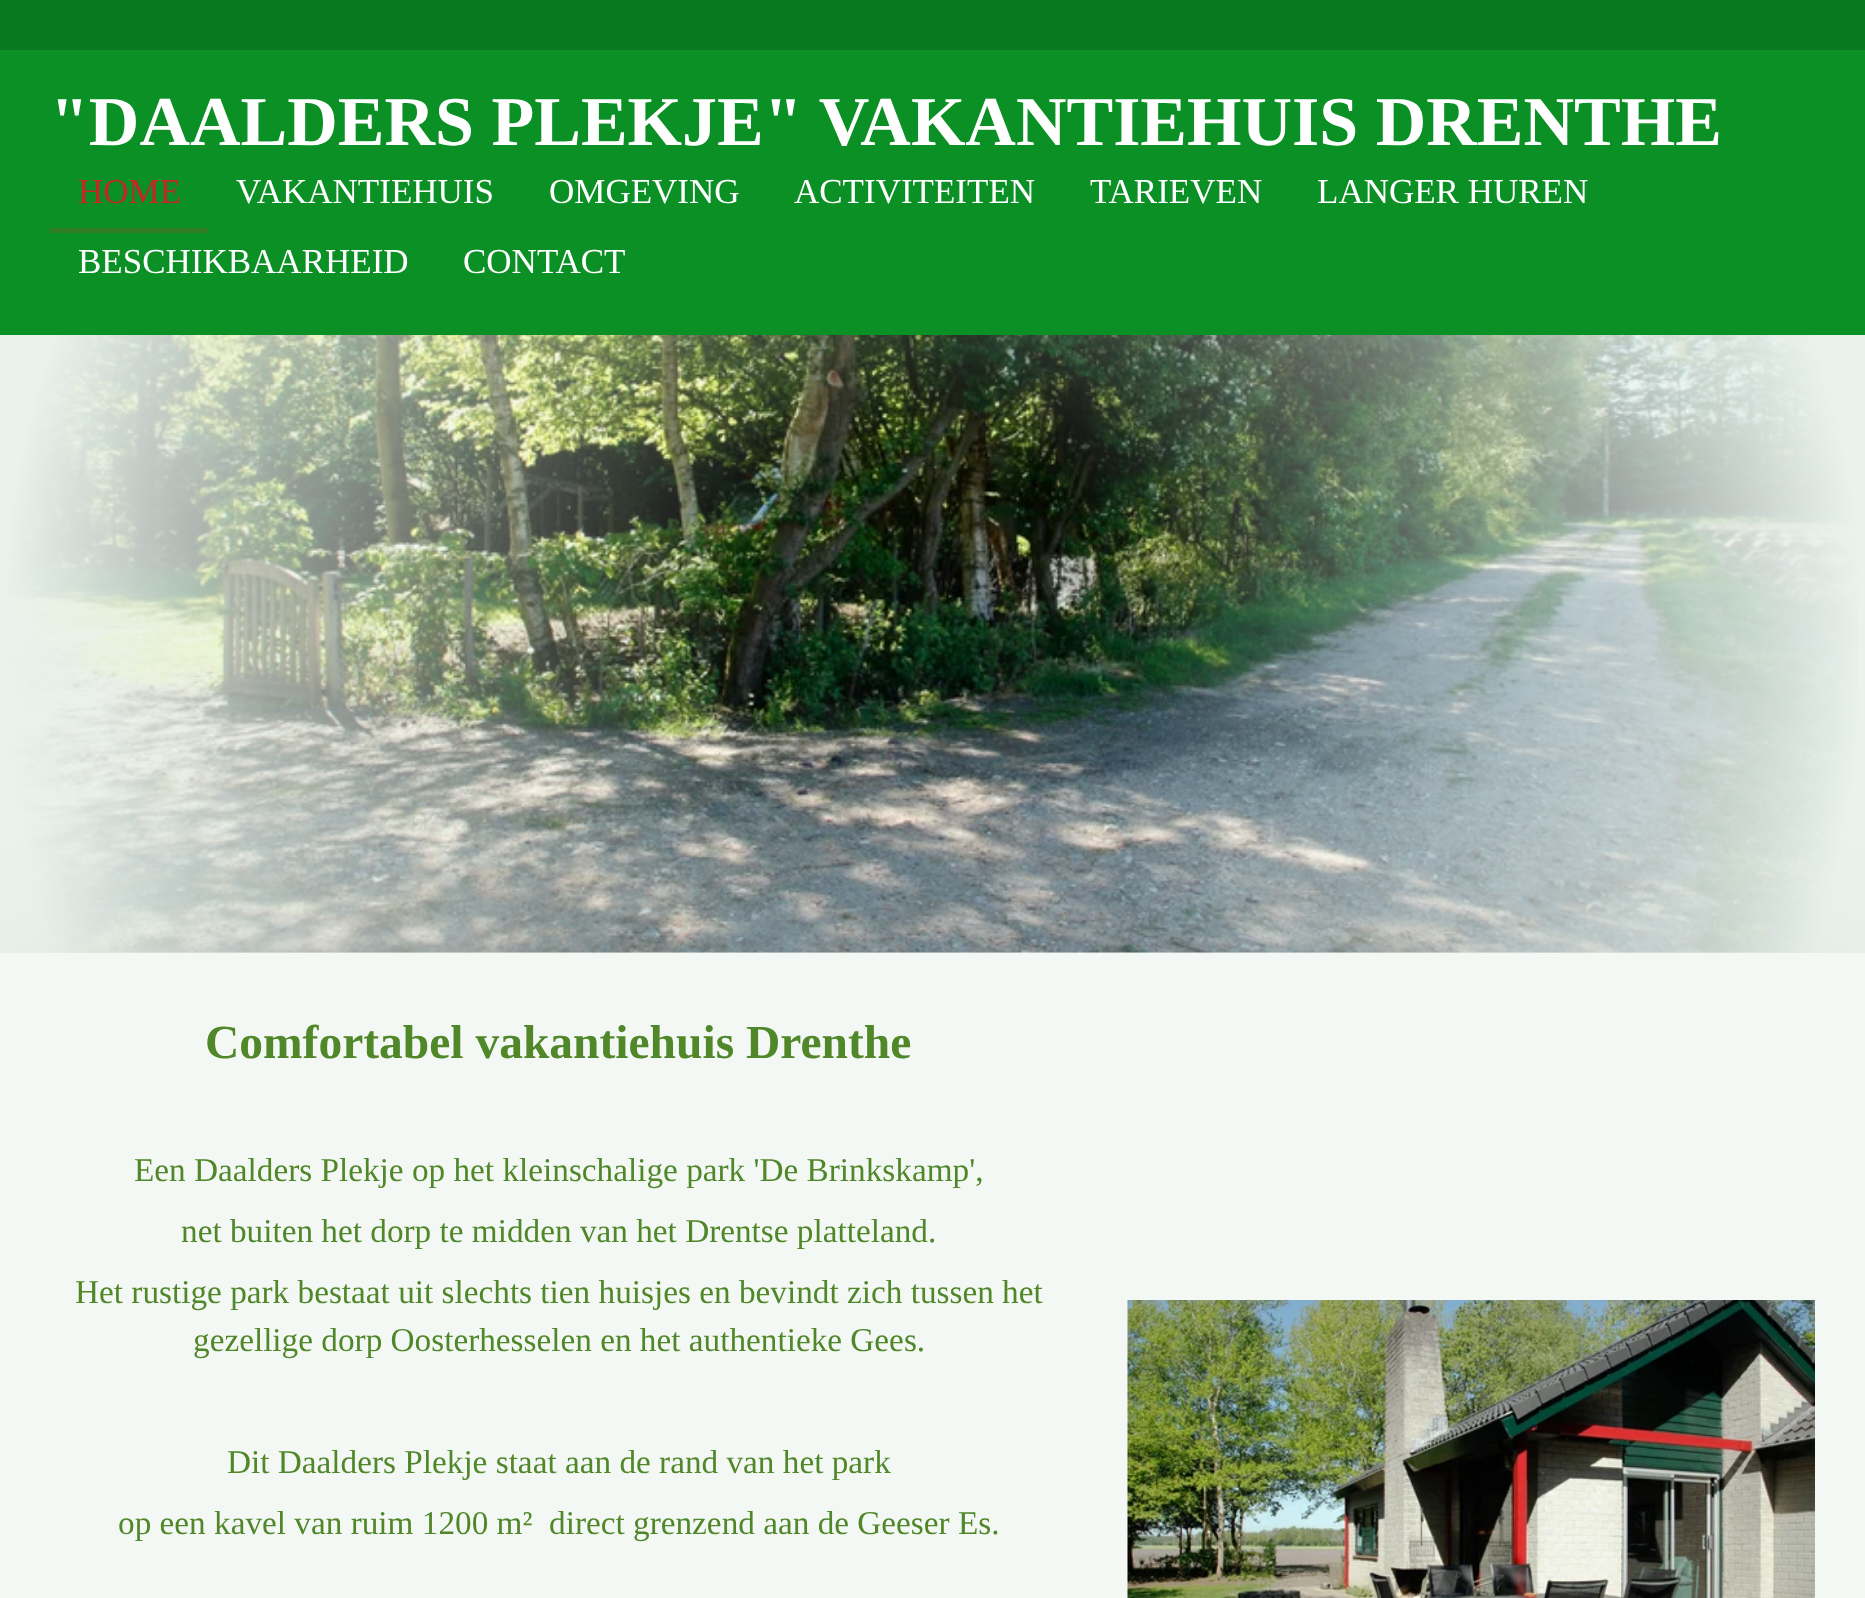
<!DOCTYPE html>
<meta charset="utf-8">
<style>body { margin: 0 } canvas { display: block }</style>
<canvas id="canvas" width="1865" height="1598"></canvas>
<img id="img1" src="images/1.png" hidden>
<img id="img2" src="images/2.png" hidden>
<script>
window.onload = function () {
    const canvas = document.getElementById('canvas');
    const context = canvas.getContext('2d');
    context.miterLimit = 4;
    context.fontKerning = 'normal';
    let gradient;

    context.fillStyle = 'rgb(234, 242, 237)';
    context.fillRect(0, 0, 1865, 1598);
    context.fillStyle = 'rgb(11, 144, 37)';
    context.fillRect(0, 50, 1865, 285);
    context.fillStyle = 'rgb(9, 120, 31)';
    context.fillRect(0, 0, 1865, 50);
    context.fillStyle = 'rgb(48, 123, 37)';
    context.beginPath();
    context.moveTo(50, 228);
    context.lineTo(50, 233);
    context.lineTo(208, 233);
    context.lineTo(208, 163);
    context.lineTo(208, 228);
    context.closePath();
    context.fill();
    context.drawImage(document.getElementById('img1'), 8, 335, 1850, 618);
    gradient = context.createRadialGradient(933, 644, 0, 933, 644, 982);
    gradient.addColorStop(0.2, 'rgba(234, 242, 237, 0)');
    gradient.addColorStop(0.95, 'rgb(234, 242, 237)');
    context.fillStyle = gradient;
    context.fillRect(8, 335, 1850, 618);
    context.fillStyle = 'rgba(0, 0, 0, 0.05)';
    context.filter = 'blur(75px)';
    context.beginPath();
    context.rect(0, 953, 1865, 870);
    context.fill();
    context.filter = 'none';
    context.fillStyle = 'rgb(243, 248, 245)';
    context.fillRect(0, 953, 1865, 645);
    context.drawImage(document.getElementById('img2'), 1127, 1300, 688, 298);
    context.font = 'bold 70px Liberation Serif';
    context.fillStyle = 'rgb(255, 255, 255)';
    context.fillText('"DAALDERS PLEKJE" VAKANTIEHUIS DRENTHE', 50, 145);
    context.font = '35px Liberation Serif';
    context.fillStyle = 'rgb(196, 39, 39)';
    context.fillText('HOME', 78, 203);
    context.fillStyle = 'rgb(255, 255, 255)';
    context.fillText('VAKANTIEHUIS', 236, 203);
    context.fillText('OMGEVING', 549, 203);
    context.fillText('ACTIVITEITEN', 794, 203);
    context.fillText('TARIEVEN', 1090, 203);
    context.fillText('LANGER HUREN', 1317, 203);
    context.fillText('BESCHIKBAARHEID', 78, 273);
    context.fillText('CONTACT', 463, 273);
    context.font = 'bold 47.5px Liberation Serif';
    context.fillStyle = 'rgb(80, 135, 41)';
    context.fillText('Comfortabel vakantiehuis Drenthe', 205, 1058);
    context.font = '33.25px Liberation Serif';
    context.fillText('Een Daalders Plekje op het kleinschalige park \'De Brinkskamp\',', 134, 1181);
    context.fillText('net buiten het dorp te midden van het Drentse platteland.', 181, 1242);
    context.fillText('Het rustige park bestaat uit slechts tien huisjes en bevindt zich tussen het', 75, 1303);
    context.fillText('gezellige dorp Oosterhesselen en het authentieke Gees.', 193, 1351);
    context.fillText('Dit Daalders Plekje staat aan de rand van het park', 227, 1473);
    context.fillText('op een kavel van ruim 1200 m²  direct grenzend aan de Geeser Es.', 118, 1534);
};
</script>
